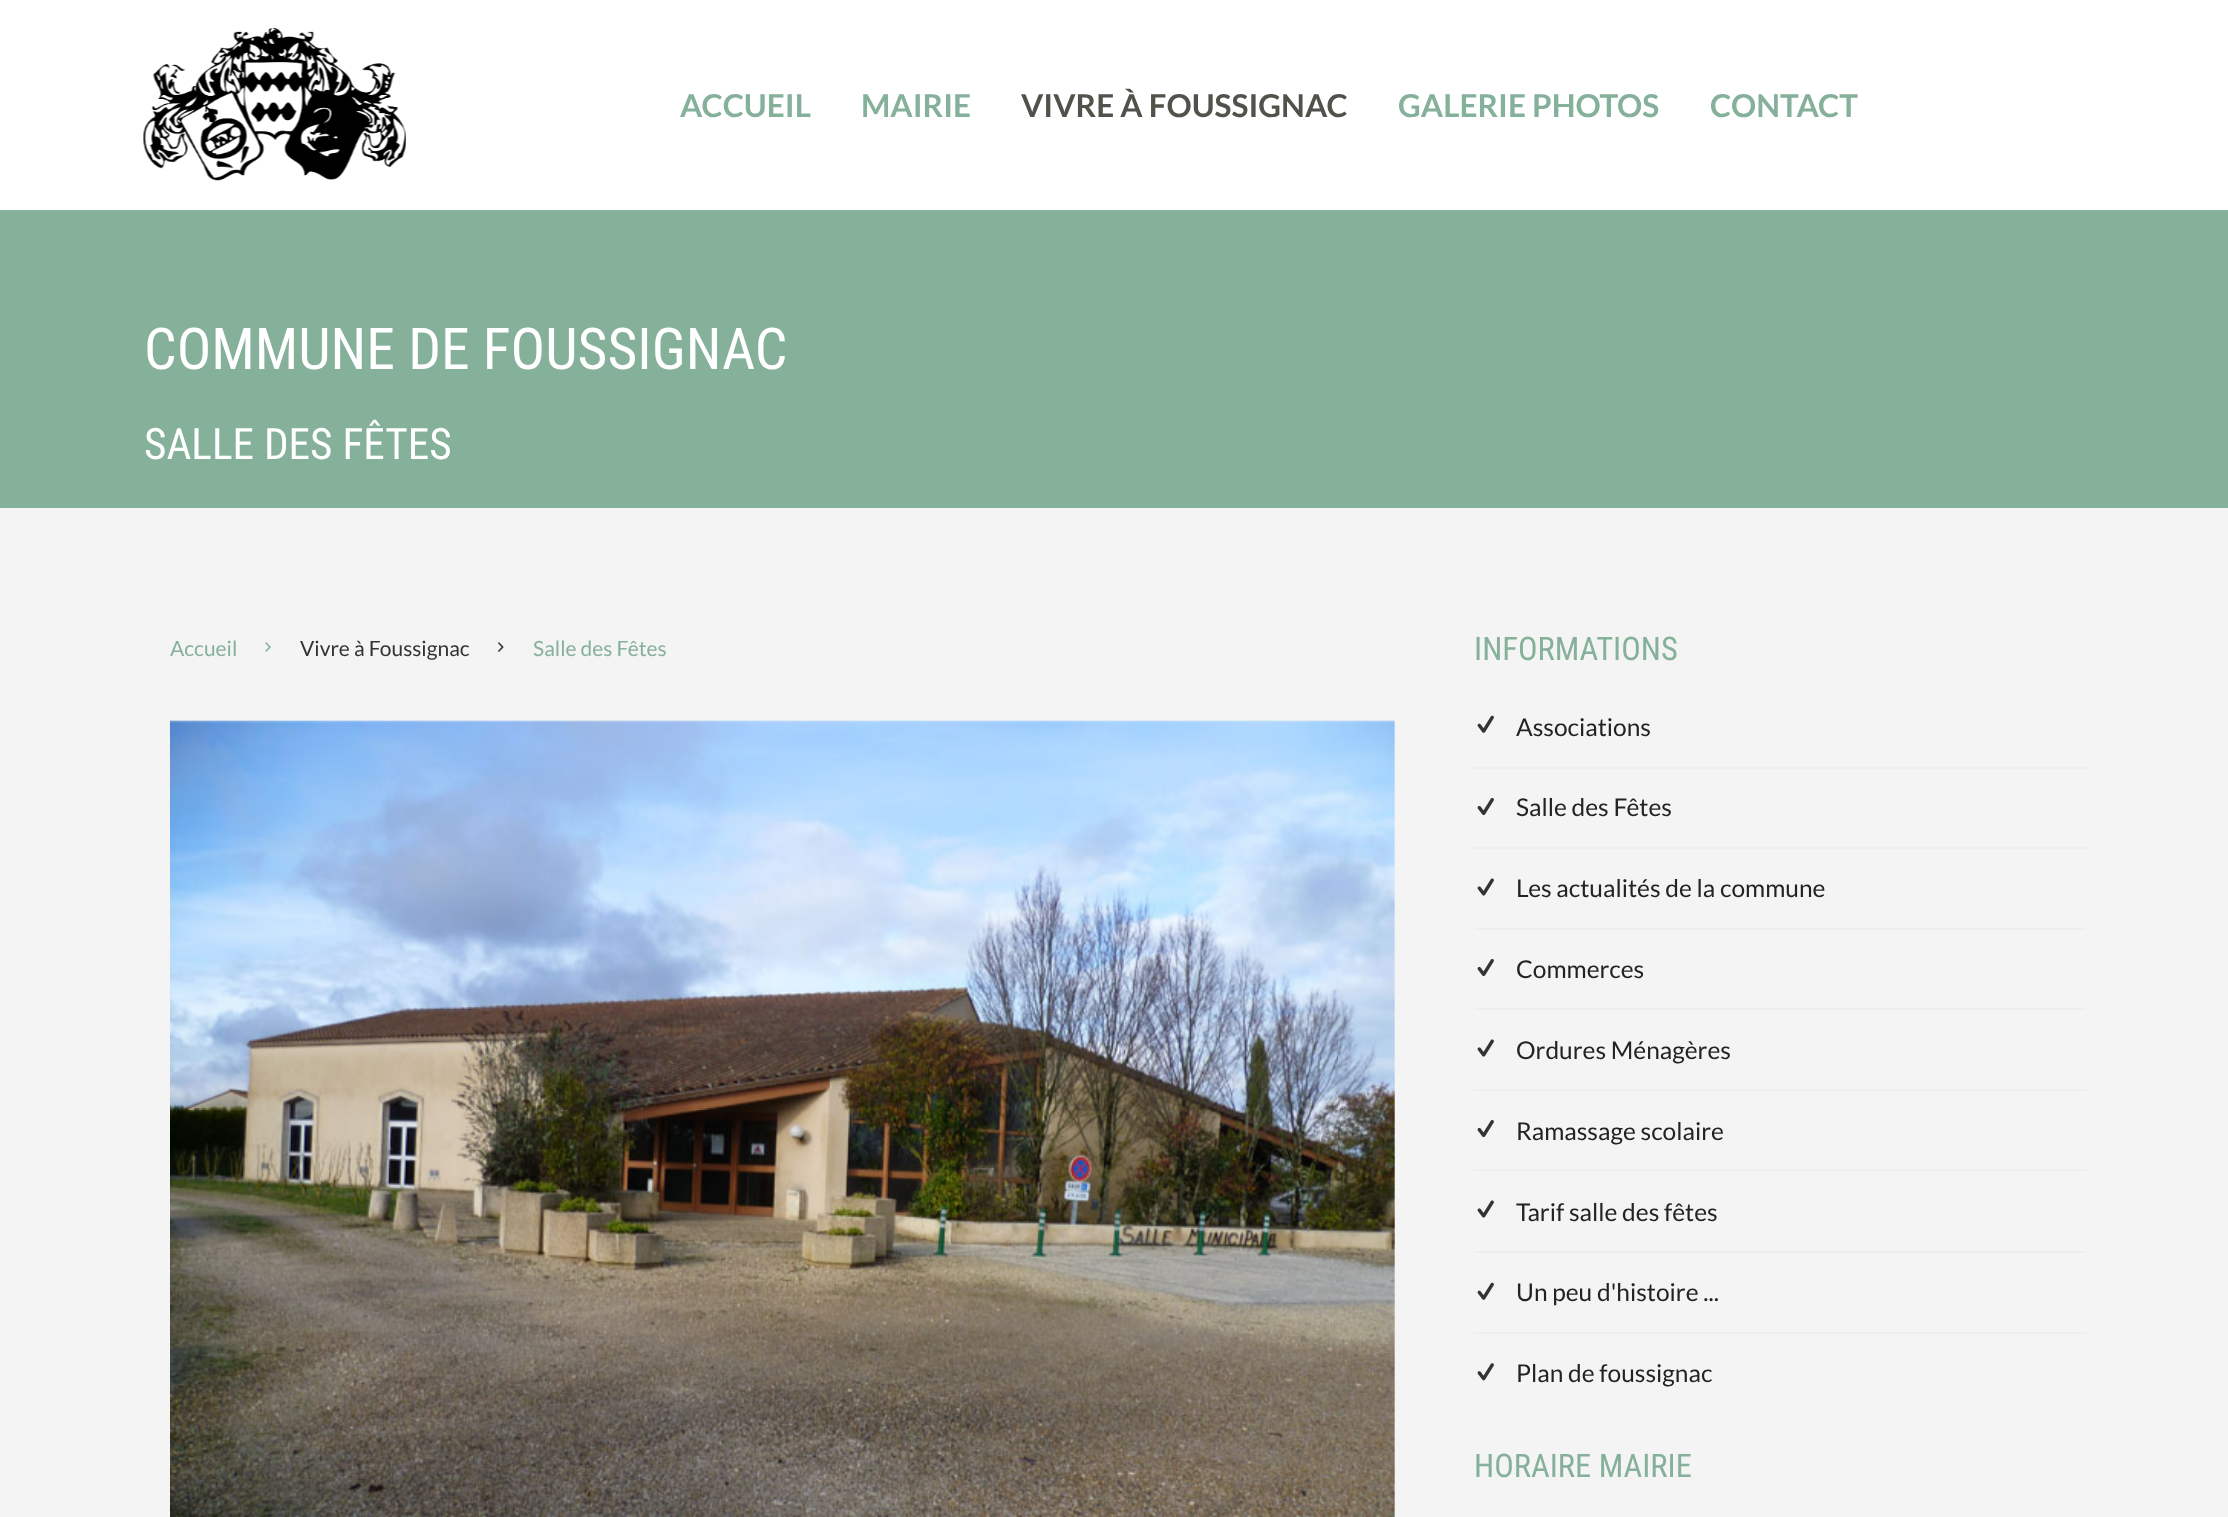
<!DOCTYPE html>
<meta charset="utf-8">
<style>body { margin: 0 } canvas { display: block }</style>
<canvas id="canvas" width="2228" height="1517"></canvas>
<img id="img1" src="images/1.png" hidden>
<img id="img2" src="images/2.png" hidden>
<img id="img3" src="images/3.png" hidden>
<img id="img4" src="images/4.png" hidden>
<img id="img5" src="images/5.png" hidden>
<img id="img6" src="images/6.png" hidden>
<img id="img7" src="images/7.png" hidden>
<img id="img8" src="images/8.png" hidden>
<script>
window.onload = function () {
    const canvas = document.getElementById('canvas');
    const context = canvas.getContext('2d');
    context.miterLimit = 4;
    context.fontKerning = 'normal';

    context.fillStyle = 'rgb(133, 176, 154)';
    context.fillRect(0, 0, 2228, 1517);
    context.fillStyle = 'rgb(255, 255, 255)';
    context.fillRect(0, 0, 2228, 210);
    context.drawImage(document.getElementById('img1'), 143, 28, 263, 153);
    context.fillStyle = 'rgb(244, 244, 244)';
    context.fillRect(0, 508, 2228, 1009);
    context.drawImage(document.getElementById('img2'), 265, 642, 6, 10);
    context.drawImage(document.getElementById('img3'), 498, 642, 6, 10);
    context.drawImage(document.getElementById('img4'), 170, 720, 1225, 797);
    context.fillStyle = 'rgb(238, 238, 238)';
    context.fillRect(1474, 767, 612, 2);
    context.drawImage(document.getElementById('img5'), 1477, 715, 17, 18);
    context.fillRect(1474, 847, 612, 2);
    context.drawImage(document.getElementById('img6'), 1477, 798, 17, 18);
    context.fillRect(1474, 928, 612, 2);
    context.drawImage(document.getElementById('img7'), 1477, 878, 17, 18);
    context.fillRect(1474, 1008, 612, 2);
    context.drawImage(document.getElementById('img6'), 1477, 959, 17, 18);
    context.fillRect(1474, 1089, 612, 2);
    context.drawImage(document.getElementById('img7'), 1477, 1039, 17, 18);
    context.fillRect(1474, 1169, 612, 2);
    context.drawImage(document.getElementById('img6'), 1477, 1120, 17, 18);
    context.fillRect(1474, 1251, 612, 2);
    context.drawImage(document.getElementById('img7'), 1477, 1200, 17, 18);
    context.fillRect(1474, 1332, 612, 2);
    context.drawImage(document.getElementById('img5'), 1477, 1282, 17, 18);
    context.drawImage(document.getElementById('img8'), 1477, 1363, 17, 18);
    context.font = 'bold 31.5px Lato';
    context.fillStyle = 'rgb(133, 176, 154)';
    context.fillText('ACCUEIL', 680, 117);
    context.fillText('MAIRIE', 861, 117);
    context.fillStyle = 'rgb(81, 83, 74)';
    context.fillText('VIVRE À FOUSSIGNAC', 1021, 117);
    context.fillStyle = 'rgb(133, 176, 154)';
    context.fillText('GALERIE PHOTOS', 1398, 117);
    context.fillText('CONTACT', 1710, 117);
    context.font = '57.6px Roboto Condensed';
    context.fillStyle = 'rgb(255, 255, 255)';
    context.fillText('COMMUNE DE FOUSSIGNAC', 144, 369);
    context.font = '43.25px Roboto Condensed';
    context.fillText('SALLE DES FÊTES', 144, 459);
    context.font = '21px Lato';
    context.fillStyle = 'rgb(133, 176, 154)';
    context.fillText('Accueil', 170, 656);
    context.fillStyle = 'rgb(51, 51, 51)';
    context.fillText('Vivre à Foussignac', 300, 656);
    context.fillStyle = 'rgb(133, 176, 154)';
    context.fillText('Salle des Fêtes', 533, 656);
    context.font = '32.5px Roboto Condensed';
    context.fillText('INFORMATIONS', 1474, 660);
    context.font = '24.5px Lato';
    context.fillStyle = 'rgb(35, 35, 35)';
    context.fillText('Associations', 1516, 736);
    context.fillText('Salle des Fêtes', 1516, 816);
    context.fillText('Les actualités de la commune', 1516, 897);
    context.fillText('Commerces', 1516, 978);
    context.fillText('Ordures Ménagères', 1516, 1059);
    context.fillText('Ramassage scolaire', 1516, 1140);
    context.fillText('Tarif salle des fêtes', 1516, 1221);
    context.fillText('Un peu d\'histoire ...', 1516, 1301);
    context.fillText('Plan de foussignac', 1516, 1382);
    context.font = '32.5px Roboto Condensed';
    context.fillStyle = 'rgb(133, 176, 154)';
    context.fillText('HORAIRE MAIRIE', 1474, 1477);
};
</script>
